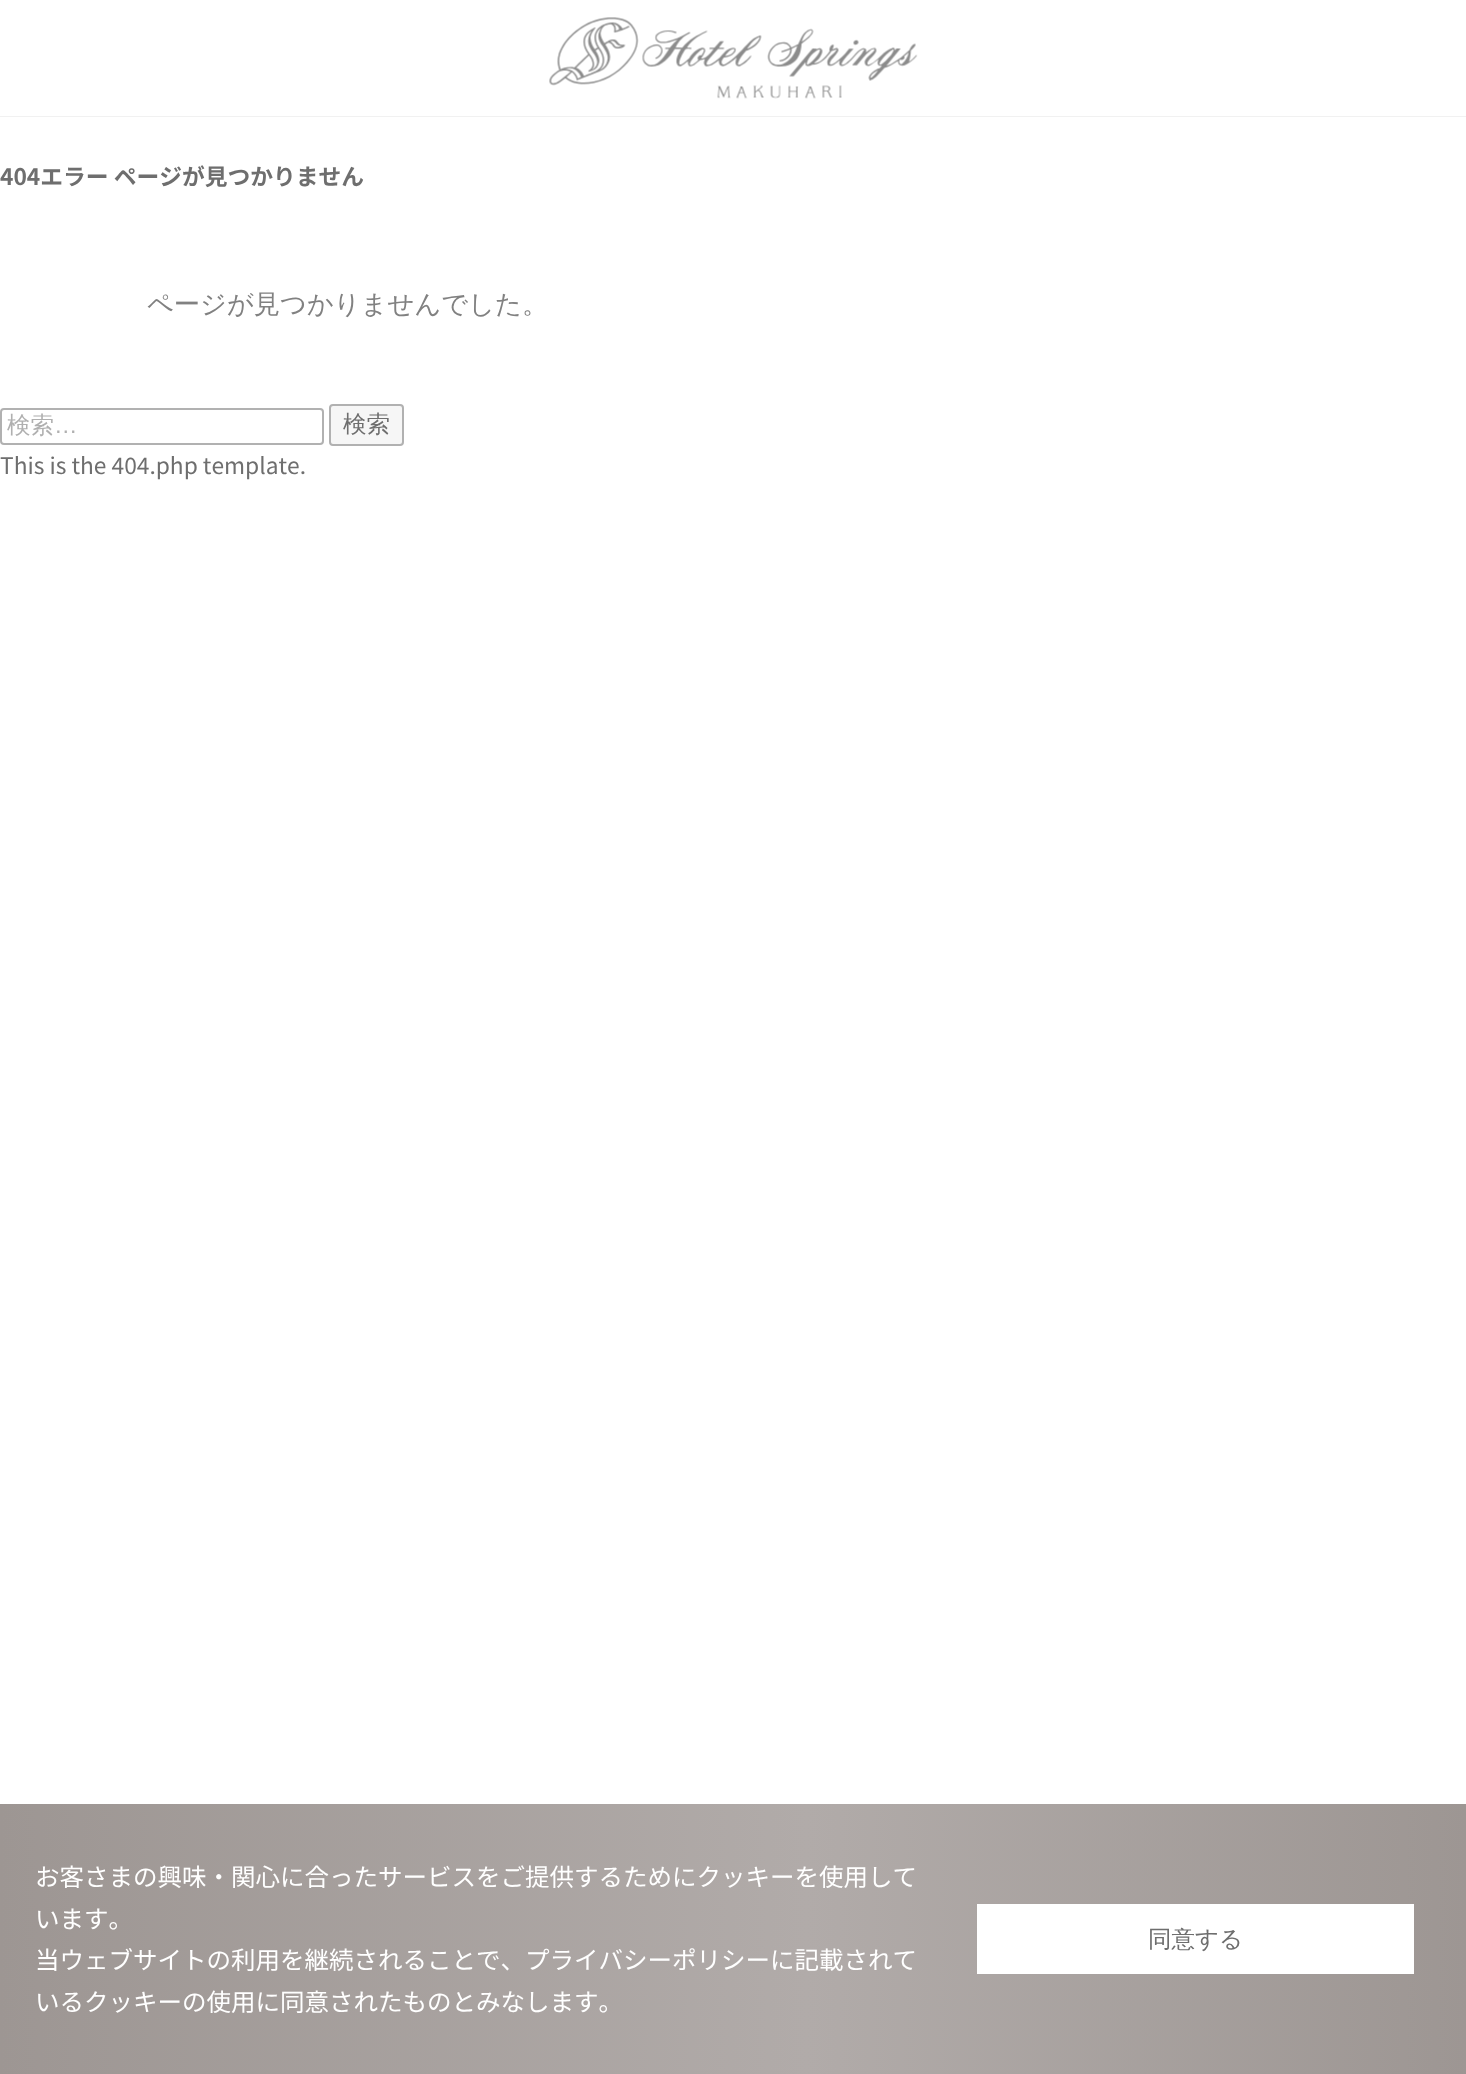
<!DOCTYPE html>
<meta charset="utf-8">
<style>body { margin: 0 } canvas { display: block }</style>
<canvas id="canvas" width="1466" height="2074"></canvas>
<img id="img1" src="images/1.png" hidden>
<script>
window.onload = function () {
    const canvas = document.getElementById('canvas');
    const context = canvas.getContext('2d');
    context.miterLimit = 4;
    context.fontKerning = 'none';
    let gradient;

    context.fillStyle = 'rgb(255, 255, 255)';
    context.fillRect(0, 0, 1466, 2074);
    context.fillStyle = 'rgb(241, 241, 241)';
    context.beginPath();
    context.moveTo(0, 116);
    context.lineTo(0, 117);
    context.lineTo(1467, 117);
    context.lineTo(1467, 2);
    context.lineTo(1466, 2);
    context.lineTo(1466, 116);
    context.closePath();
    context.fill();
    context.drawImage(document.getElementById('img1'), 549, 17, 369, 82);
    context.beginPath();
    context.roundRect(1, 409, 322, 35, 3);
    context.strokeStyle = 'rgb(177, 177, 177)';
    context.lineWidth = 2;
    context.stroke();
    context.fillStyle = 'rgb(246, 246, 246)';
    context.beginPath();
    context.roundRect(330, 405, 73, 40, 3);
    context.fill();
    context.stroke();
    gradient = context.createLinearGradient(0, 1940, 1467, 1940);
    gradient.addColorStop(0, 'rgb(157, 150, 147)');
    gradient.addColorStop(0.55, 'rgb(177, 171, 169)');
    gradient.addColorStop(1, 'rgb(157, 150, 147)');
    context.fillStyle = gradient;
    context.fillRect(0, 1804, 1466, 270);
    context.fillStyle = 'rgb(255, 255, 255)';
    context.fillRect(977, 1904, 437, 70);
    context.font = 'bold 22.75px Noto Sans JP';
    context.fillStyle = 'rgb(110, 110, 110)';
    context.fillText('404エラー ページが見つかりません', 0, 185);
    context.font = '500 26.25px WenQuanYi Zen Hei';
    context.fillStyle = 'rgb(129, 129, 129)';
    context.fillText('ページが見つかりませんでした。', 147, 313);
    context.font = '500 23.5px WenQuanYi Zen Hei';
    context.fillStyle = 'rgb(176, 176, 176)';
    context.fillText('検索', 7, 433);
    context.font = '23.5px Liberation Sans';
    context.fillText('…', 54, 433);
    context.font = '500 23.5px WenQuanYi Zen Hei';
    context.fillStyle = 'rgb(110, 110, 110)';
    context.fillText('検索', 343, 432);
    context.font = '22.75px Noto Sans JP';
    context.fillText('This is the 404.php template.', 0, 474);
    context.font = '24.5px Noto Sans JP';
    context.fillStyle = 'rgb(255, 255, 255)';
    context.fillText('お客さまの興味・関心に合ったサービスをご提供するためにクッキーを使用して', 35, 1886);
    context.fillText('います。', 35, 1928);
    context.fillText('当ウェブサイトの利用を継続されることで、プライバシーポリシーに記載されて', 35, 1969);
    context.fillText('いるクッキーの使用に同意されたものとみなします。', 35, 2011);
    context.font = '500 23.5px WenQuanYi Zen Hei';
    context.fillStyle = 'rgb(110, 110, 110)';
    context.fillText('同意する', 1148, 1947);
};
</script>
